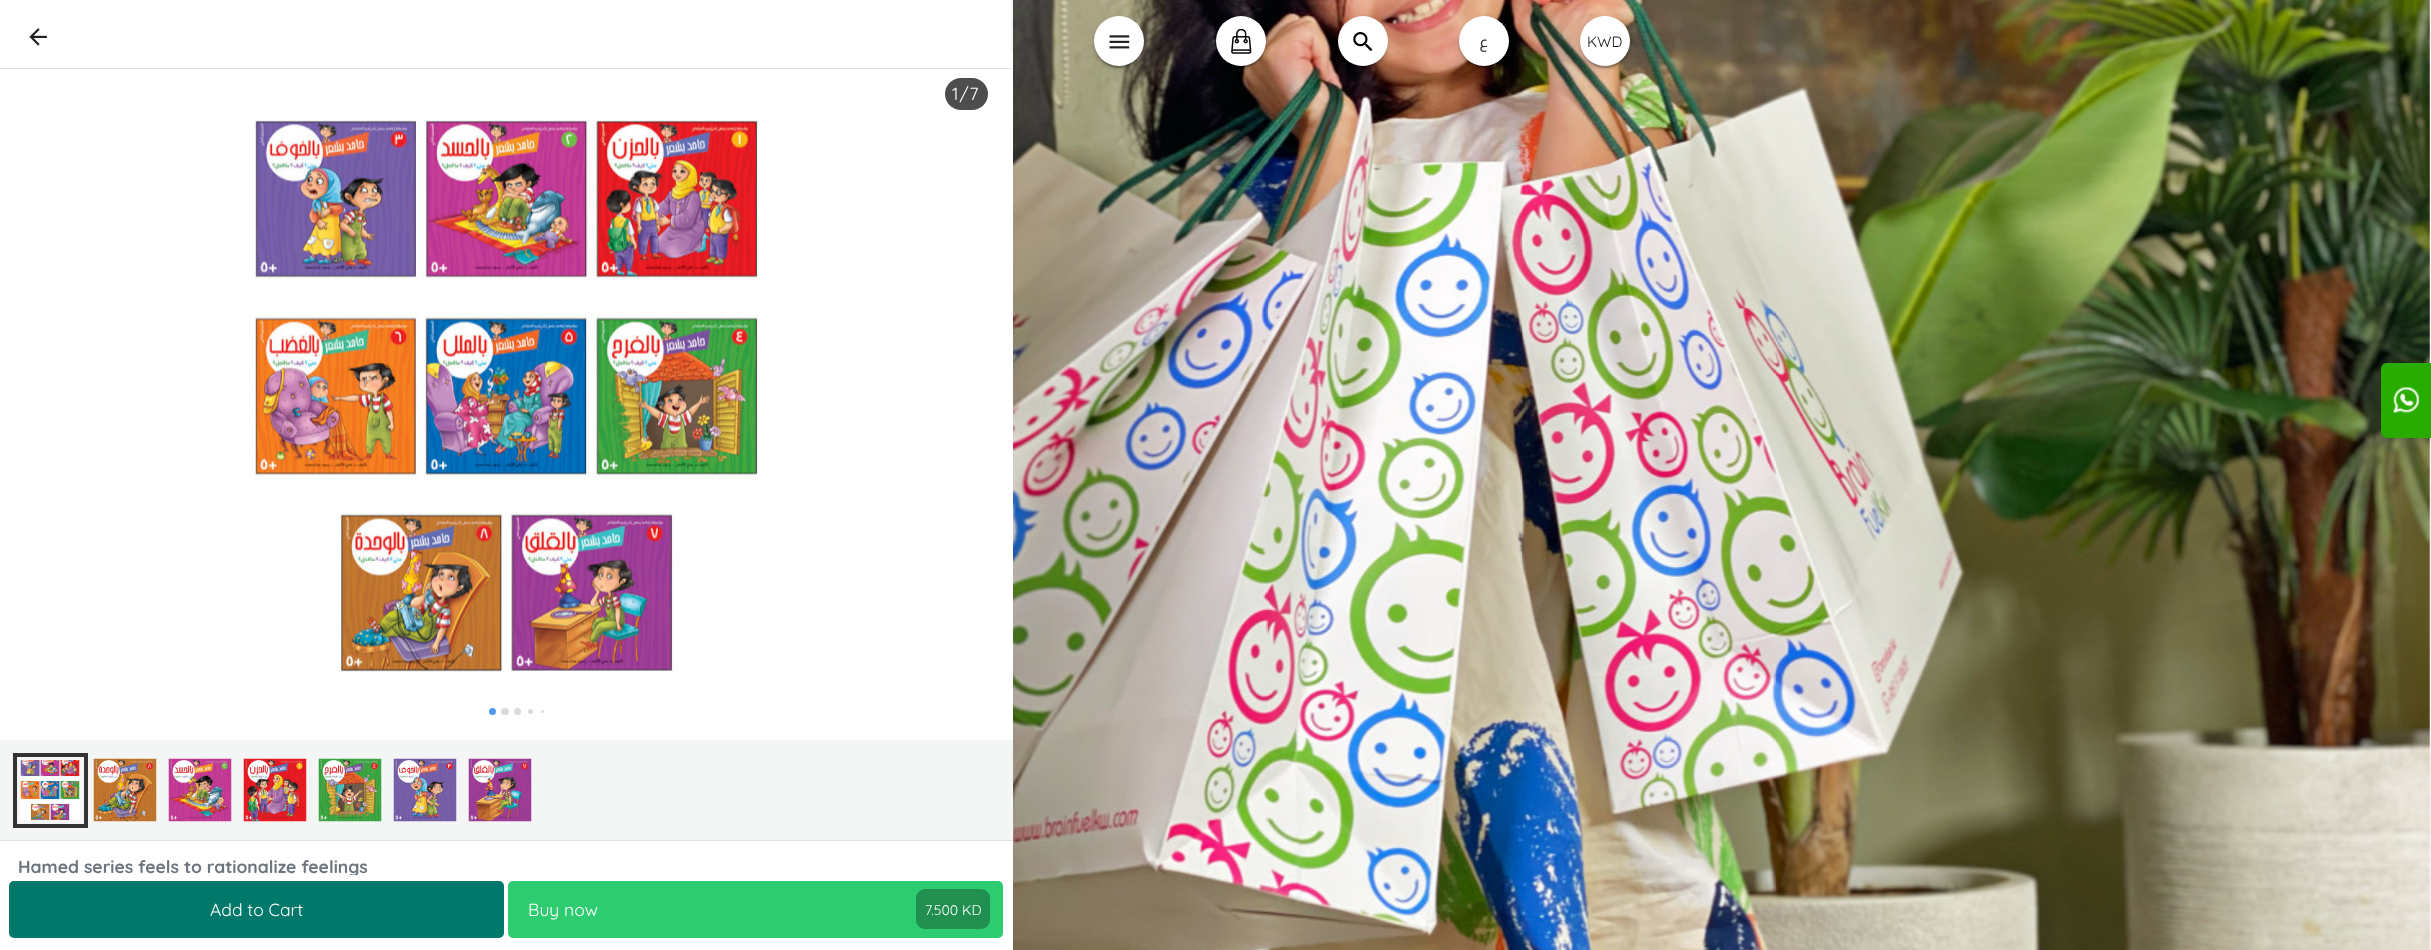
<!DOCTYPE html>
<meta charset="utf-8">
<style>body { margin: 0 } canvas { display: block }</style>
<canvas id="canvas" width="2431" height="950"></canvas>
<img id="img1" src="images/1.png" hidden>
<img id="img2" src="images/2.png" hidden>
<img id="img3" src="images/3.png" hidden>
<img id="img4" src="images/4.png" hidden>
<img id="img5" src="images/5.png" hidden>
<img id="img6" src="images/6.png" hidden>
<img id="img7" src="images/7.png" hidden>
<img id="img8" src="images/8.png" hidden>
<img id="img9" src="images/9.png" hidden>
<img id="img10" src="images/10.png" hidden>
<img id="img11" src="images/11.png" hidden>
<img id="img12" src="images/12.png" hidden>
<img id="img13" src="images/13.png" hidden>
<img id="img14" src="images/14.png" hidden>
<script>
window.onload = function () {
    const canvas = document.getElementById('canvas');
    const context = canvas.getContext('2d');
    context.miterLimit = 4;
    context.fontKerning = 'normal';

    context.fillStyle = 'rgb(244, 245, 245)';
    context.fillRect(0, 0, 2431, 950);
    context.drawImage(document.getElementById('img1'), 1013, 0, 1417, 950);
    context.fillStyle = 'rgba(0, 0, 0, 0.12)';
    context.filter = 'blur(3px)';
    context.beginPath();
    context.roundRect(1094, 18, 50, 50, 25);
    context.fill();
    context.filter = 'none';
    context.fillStyle = 'rgba(0, 0, 0, 0.14)';
    context.filter = 'blur(1px)';
    context.beginPath();
    context.roundRect(1094, 19, 50, 50, 25);
    context.fill();
    context.filter = 'none';
    context.fillStyle = 'rgba(0, 0, 0, 0.2)';
    context.filter = 'blur(0.5px)';
    context.beginPath();
    context.roundRect(1096, 23, 45, 45, 22.5);
    context.fill();
    context.filter = 'none';
    context.fillStyle = 'rgb(255, 255, 255)';
    context.beginPath();
    context.arc(1119, 41, 25, 0, 2 * Math.PI);
    context.fill();
    context.drawImage(document.getElementById('img2'), 1109, 35, 21, 14);
    context.fillStyle = 'rgba(0, 0, 0, 0.12)';
    context.filter = 'blur(3px)';
    context.beginPath();
    context.roundRect(1216, 18, 50, 50, 25);
    context.fill();
    context.filter = 'none';
    context.fillStyle = 'rgba(0, 0, 0, 0.14)';
    context.filter = 'blur(1px)';
    context.beginPath();
    context.roundRect(1216, 19, 50, 50, 25);
    context.fill();
    context.filter = 'none';
    context.fillStyle = 'rgba(0, 0, 0, 0.2)';
    context.filter = 'blur(0.5px)';
    context.beginPath();
    context.roundRect(1219, 23, 45, 45, 22.5);
    context.fill();
    context.filter = 'none';
    context.fillStyle = 'rgb(255, 255, 255)';
    context.beginPath();
    context.arc(1241, 41, 25, 0, 2 * Math.PI);
    context.fill();
    context.drawImage(document.getElementById('img3'), 1231, 29, 21, 25);
    context.fillStyle = 'rgba(0, 0, 0, 0.12)';
    context.filter = 'blur(3px)';
    context.beginPath();
    context.roundRect(1338, 18, 50, 50, 25);
    context.fill();
    context.filter = 'none';
    context.fillStyle = 'rgba(0, 0, 0, 0.14)';
    context.filter = 'blur(1px)';
    context.beginPath();
    context.roundRect(1338, 19, 50, 50, 25);
    context.fill();
    context.filter = 'none';
    context.fillStyle = 'rgba(0, 0, 0, 0.2)';
    context.filter = 'blur(0.5px)';
    context.beginPath();
    context.roundRect(1340, 23, 45, 45, 22.5);
    context.fill();
    context.filter = 'none';
    context.fillStyle = 'rgb(255, 255, 255)';
    context.beginPath();
    context.arc(1363, 41, 25, 0, 2 * Math.PI);
    context.fill();
    context.drawImage(document.getElementById('img4'), 1353, 32, 20, 20);
    context.fillStyle = 'rgba(0, 0, 0, 0.12)';
    context.filter = 'blur(3px)';
    context.beginPath();
    context.roundRect(1459, 18, 50, 50, 25);
    context.fill();
    context.filter = 'none';
    context.fillStyle = 'rgba(0, 0, 0, 0.14)';
    context.filter = 'blur(1px)';
    context.beginPath();
    context.roundRect(1459, 19, 50, 50, 25);
    context.fill();
    context.filter = 'none';
    context.fillStyle = 'rgba(0, 0, 0, 0.2)';
    context.filter = 'blur(0.5px)';
    context.beginPath();
    context.roundRect(1461, 23, 45, 45, 22.5);
    context.fill();
    context.filter = 'none';
    context.fillStyle = 'rgb(255, 255, 255)';
    context.beginPath();
    context.arc(1484, 41, 25, 0, 2 * Math.PI);
    context.fill();
    context.fillStyle = 'rgba(0, 0, 0, 0.12)';
    context.filter = 'blur(3px)';
    context.beginPath();
    context.roundRect(1580, 18, 50, 50, 25);
    context.fill();
    context.filter = 'none';
    context.fillStyle = 'rgba(0, 0, 0, 0.14)';
    context.filter = 'blur(1px)';
    context.beginPath();
    context.roundRect(1580, 19, 50, 50, 25);
    context.fill();
    context.filter = 'none';
    context.fillStyle = 'rgba(0, 0, 0, 0.2)';
    context.filter = 'blur(0.5px)';
    context.beginPath();
    context.roundRect(1583, 23, 45, 45, 22.5);
    context.fill();
    context.filter = 'none';
    context.fillStyle = 'rgb(255, 255, 255)';
    context.beginPath();
    context.arc(1605, 41, 25, 0, 2 * Math.PI);
    context.fill();
    context.fillRect(0, 0, 1011, 53);
    context.fillRect(0, 53, 1013, 687);
    context.fillStyle = 'rgb(222, 226, 230)';
    context.fillRect(0, 68, 1011, 1);
    context.drawImage(document.getElementById('img5'), 29, 28, 18, 18);
    context.drawImage(document.getElementById('img6'), 249, 69, 515, 603);
    context.fillStyle = 'rgb(77, 77, 77)';
    context.beginPath();
    context.roundRect(945, 78, 43, 32, 16);
    context.fill();
    context.fillStyle = 'rgb(78, 153, 233)';
    context.beginPath();
    context.arc(492.5, 711.5, 3.5, 0, 2 * Math.PI);
    context.fill();
    context.fillStyle = 'rgb(218, 219, 220)';
    context.beginPath();
    context.roundRect(501, 708, 8, 7, 3.5);
    context.fill();
    context.beginPath();
    context.arc(517.5, 711.5, 3.5, 0, 2 * Math.PI);
    context.fill();
    context.beginPath();
    context.arc(530.5, 711.5, 2.5, 0, 2 * Math.PI);
    context.fill();
    context.beginPath();
    context.arc(542.5, 711.5, 1.5, 0, 2 * Math.PI);
    context.fill();
    context.strokeStyle = 'rgb(51, 51, 51)';
    context.lineWidth = 4;
    context.strokeRect(15, 755, 71, 71);
    context.drawImage(document.getElementById('img7'), 20, 760, 60, 60);
    context.drawImage(document.getElementById('img8'), 93, 758, 64, 64);
    context.drawImage(document.getElementById('img9'), 168, 758, 64, 64);
    context.drawImage(document.getElementById('img10'), 243, 758, 64, 64);
    context.drawImage(document.getElementById('img11'), 318, 758, 64, 64);
    context.drawImage(document.getElementById('img12'), 393, 758, 64, 64);
    context.drawImage(document.getElementById('img13'), 468, 758, 64, 64);
    context.fillStyle = 'rgb(255, 255, 255)';
    context.fillRect(0, 841, 1013, 109);
    context.fillStyle = 'rgb(222, 226, 230)';
    context.fillRect(0, 840, 1013, 1);
    context.fillStyle = 'rgb(0, 121, 107)';
    context.beginPath();
    context.roundRect(9, 881, 495, 57, 5);
    context.fill();
    context.fillStyle = 'rgb(46, 204, 113)';
    context.beginPath();
    context.roundRect(508, 881, 495, 57, 5);
    context.fill();
    context.fillStyle = 'rgb(32, 143, 79)';
    context.beginPath();
    context.roundRect(916, 889, 74, 40, 9);
    context.fill();
    context.fillStyle = 'rgba(0, 0, 0, 0.15)';
    context.filter = 'blur(2px)';
    context.beginPath();
    context.roundRect(2380, 363, 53, 77, 8);
    context.fill();
    context.filter = 'none';
    context.fillStyle = 'rgb(41, 172, 0)';
    context.beginPath();
    context.roundRect(2381, 363, 50, 75, [6, 0, 0, 6]);
    context.fill();
    context.drawImage(document.getElementById('img14'), 2381, 363, 39, 50);
    context.direction = 'rtl';
    context.font = '15px Cairo';
    context.fillStyle = 'rgb(33, 33, 33)';
    context.fillText('ع', 1488, 47);
    context.direction = 'ltr';
    context.font = '300 15px "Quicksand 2"';
    context.fillText('KWD', 1587, 47);
    context.letterSpacing = '1px';
    context.font = '300 17.5px "Quicksand 2"';
    context.fillStyle = 'rgb(255, 255, 255)';
    context.fillText('1/7', 952, 100);
    context.letterSpacing = '0px';
    context.font = '300 17.5px Quicksand';
    context.fillStyle = 'rgb(108, 117, 125)';
    context.fillText('Hamed series feels to rationalize feelings', 18, 873);
    context.fillStyle = 'rgb(255, 255, 255)';
    context.fillRect(349, 875, 8, 2);
    context.font = '300 17.5px "Quicksand 2"';
    context.fillText('Add to Cart', 210, 916);
    context.fillText('Buy now', 528, 916);
    context.font = '300 14px "Quicksand 2"';
    context.fillText('7.500 KD', 925, 915);
};
</script>
